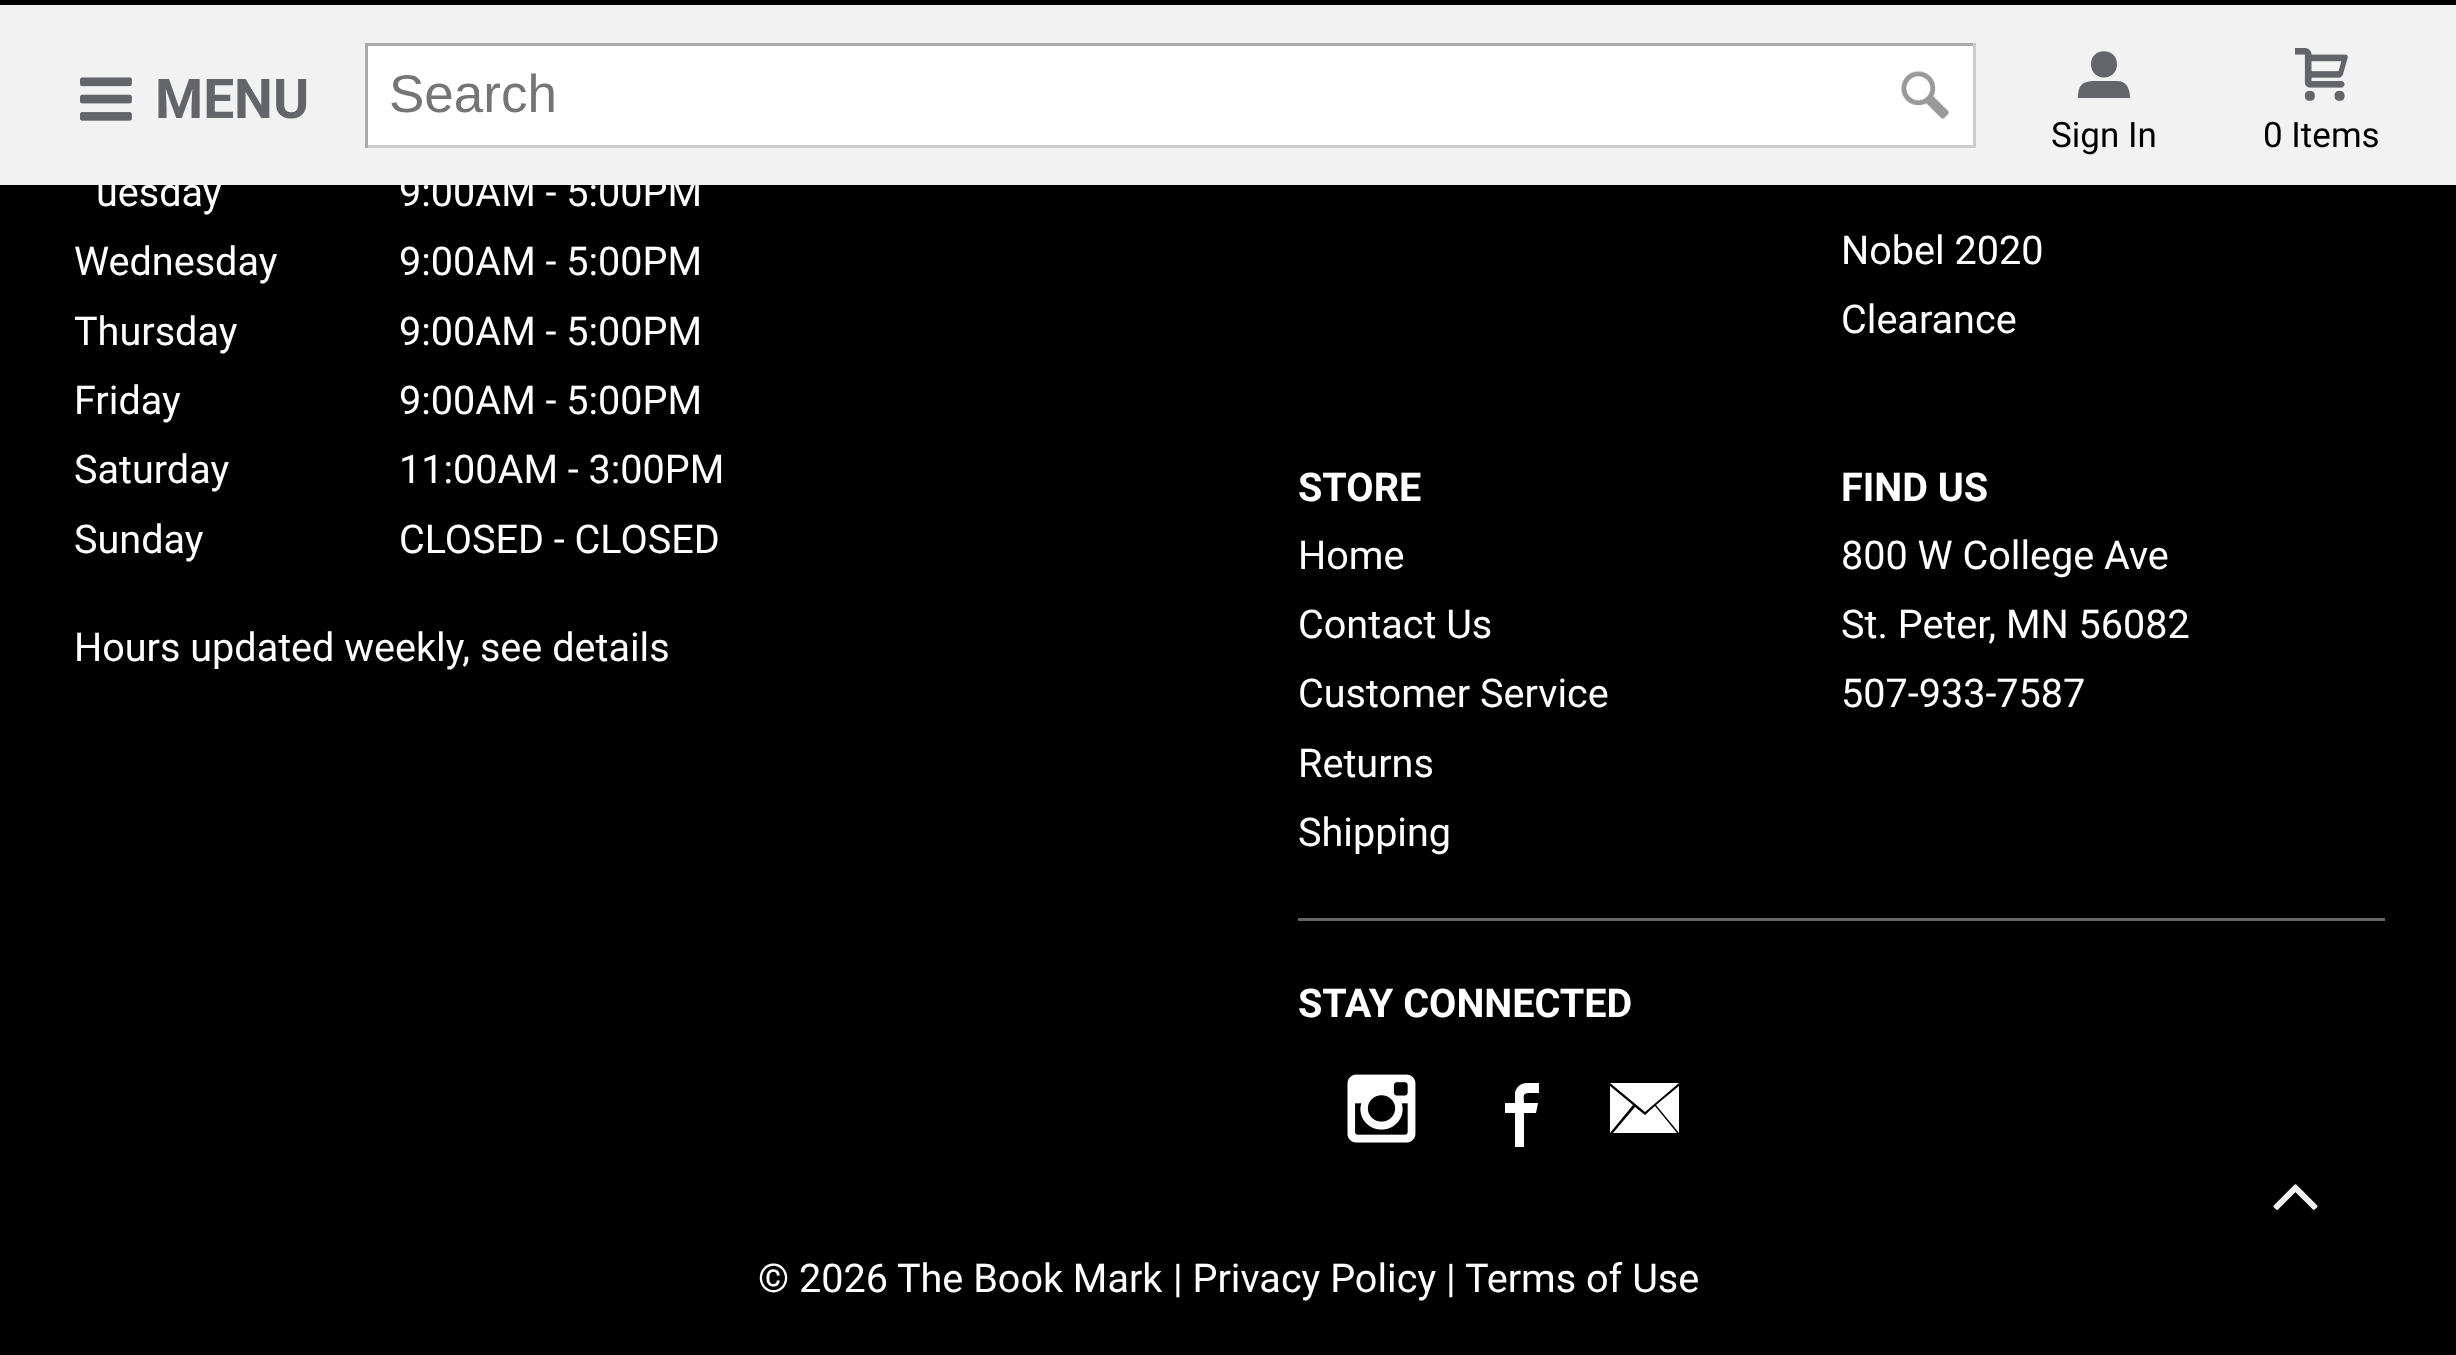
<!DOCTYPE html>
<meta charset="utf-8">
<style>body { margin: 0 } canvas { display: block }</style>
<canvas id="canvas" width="2456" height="1355"></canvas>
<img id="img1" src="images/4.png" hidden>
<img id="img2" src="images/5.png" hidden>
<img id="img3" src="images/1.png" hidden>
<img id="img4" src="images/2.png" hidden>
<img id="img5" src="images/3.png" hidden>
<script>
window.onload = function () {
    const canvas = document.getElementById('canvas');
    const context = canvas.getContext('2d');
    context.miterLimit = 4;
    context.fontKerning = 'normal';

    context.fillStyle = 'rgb(0, 0, 0)';
    context.fillRect(0, 0, 2456, 1355);
    context.fillStyle = 'rgba(0, 0, 0, 0.4)';
    context.filter = 'blur(12.5px)';
    context.beginPath();
    context.rect(15, 28, 2428, 155);
    context.fill();
    context.filter = 'none';
    context.fillStyle = 'rgb(102, 102, 102)';
    context.fillRect(1298, 918, 1087, 3);
    context.drawImage(document.getElementById('img1'), 1347, 1074, 69, 69);
    context.fillStyle = 'rgb(255, 255, 255)';
    context.beginPath();
    context.moveTo(1527, 1083);
    context.bezierCurveTo(1521, 1083, 1516, 1087, 1515, 1093);
    context.lineTo(1515, 1103);
    context.lineTo(1505, 1103);
    context.lineTo(1505, 1113);
    context.lineTo(1515, 1113);
    context.lineTo(1515, 1147);
    context.lineTo(1524, 1147);
    context.lineTo(1524, 1113);
    context.lineTo(1536, 1113);
    context.lineTo(1538, 1103);
    context.lineTo(1524, 1103);
    context.bezierCurveTo(1524, 1097, 1522, 1093, 1529, 1093);
    context.lineTo(1539, 1093);
    context.lineTo(1539, 1083);
    context.closePath();
    context.fill();
    context.beginPath();
    context.moveTo(1645, 1115);
    context.lineTo(1635, 1107);
    context.lineTo(1613, 1133);
    context.lineTo(1677, 1133);
    context.lineTo(1655, 1106);
    context.closePath();
    context.moveTo(1679, 1083);
    context.lineTo(1610, 1083);
    context.lineTo(1645, 1112);
    context.closePath();
    context.moveTo(1656, 1105);
    context.lineTo(1679, 1133);
    context.lineTo(1679, 1086);
    context.closePath();
    context.moveTo(1610, 1086);
    context.lineTo(1610, 1133);
    context.lineTo(1633, 1105);
    context.closePath();
    context.fill();
    context.drawImage(document.getElementById('img2'), 2273, 1184, 45, 26);
    context.font = '39.6px Roboto';
    context.fillText('uesday', 96, 206);
    context.fillText('9:00AM - 5:00PM', 399, 206);
    context.fillStyle = 'rgb(242, 242, 242)';
    context.fillRect(0, 5, 2456, 180);
    context.font = 'bold 55px Roboto';
    context.fillStyle = 'rgb(100, 101, 105)';
    context.fillText('MENU', 155, 118);
    context.drawImage(document.getElementById('img3'), 80, 77, 52, 44);
    context.fillStyle = 'rgb(255, 255, 255)';
    context.fillRect(368, 46, 1605, 99);
    context.drawImage(document.getElementById('img4'), 1901, 71, 49, 48);
    context.font = '53px Liberation Sans';
    context.fillStyle = 'rgb(117, 117, 117)';
    context.fillText('Search', 389, 112);
    context.fillStyle = 'rgb(170, 170, 170)';
    context.fillRect(365, 43, 1610, 3);
    context.fillStyle = 'rgb(204, 204, 204)';
    context.fillRect(1973, 43, 3, 105);
    context.fillRect(365, 145, 1610, 3);
    context.fillStyle = 'rgb(170, 170, 170)';
    context.fillRect(365, 43, 3, 105);
    context.font = '35px Roboto';
    context.fillStyle = 'rgb(0, 0, 0)';
    context.fillText('0 Items', 2263, 147);
    context.drawImage(document.getElementById('img5'), 2295, 48, 53, 53);
    context.fillText('Sign In', 2051, 147);
    context.fillStyle = 'rgb(100, 101, 105)';
    context.beginPath();
    context.moveTo(2091, 64);
    context.bezierCurveTo(2091, 47, 2117, 47, 2117, 64);
    context.bezierCurveTo(2117, 82, 2091, 82, 2091, 64);
    context.closePath();
    context.moveTo(2117, 81);
    context.lineTo(2100, 81);
    context.bezierCurveTo(2086, 81, 2078, 81, 2078, 98);
    context.lineTo(2130, 98);
    context.bezierCurveTo(2130, 89, 2127, 81, 2117, 81);
    context.closePath();
    context.fill();
    context.font = '39.6px Roboto';
    context.fillStyle = 'rgb(255, 255, 255)';
    context.fillText('Wednesday', 74, 275);
    context.fillText('9:00AM - 5:00PM', 399, 275);
    context.fillText('Thursday', 74, 345);
    context.fillText('9:00AM - 5:00PM', 399, 345);
    context.fillText('Friday', 74, 414);
    context.fillText('9:00AM - 5:00PM', 399, 414);
    context.fillText('Saturday', 74, 483);
    context.fillText('11:00AM - 3:00PM', 399, 483);
    context.fillText('Sunday', 74, 553);
    context.fillText('CLOSED - CLOSED', 399, 553);
    context.fillText('Hours updated weekly, see details', 74, 661);
    context.fillText('Nobel 2020', 1841, 264);
    context.fillText('Clearance', 1841, 333);
    context.font = 'bold 39.6px Roboto';
    context.fillText('STORE', 1298, 501);
    context.font = '39.6px Roboto';
    context.fillText('Home', 1298, 569);
    context.fillText('Contact Us', 1298, 638);
    context.fillText('Customer Service', 1298, 707);
    context.fillText('Returns', 1298, 777);
    context.fillText('Shipping', 1298, 846);
    context.font = 'bold 39.6px Roboto';
    context.fillText('FIND US', 1841, 501);
    context.font = '39.6px Roboto';
    context.fillText('800 W College Ave', 1841, 569);
    context.fillText('St. Peter, MN 56082', 1841, 638);
    context.fillText('507-933-7587', 1841, 707);
    context.font = 'bold 39.6px Roboto';
    context.fillText('STAY CONNECTED', 1298, 1017);
    context.font = '39.6px Roboto';
    context.fillText('© 2026 The Book Mark', 758, 1292);
    context.fillText('| Privacy Policy |', 1173, 1292);
    context.fillText('Terms of Use', 1465, 1292);
};
</script>
